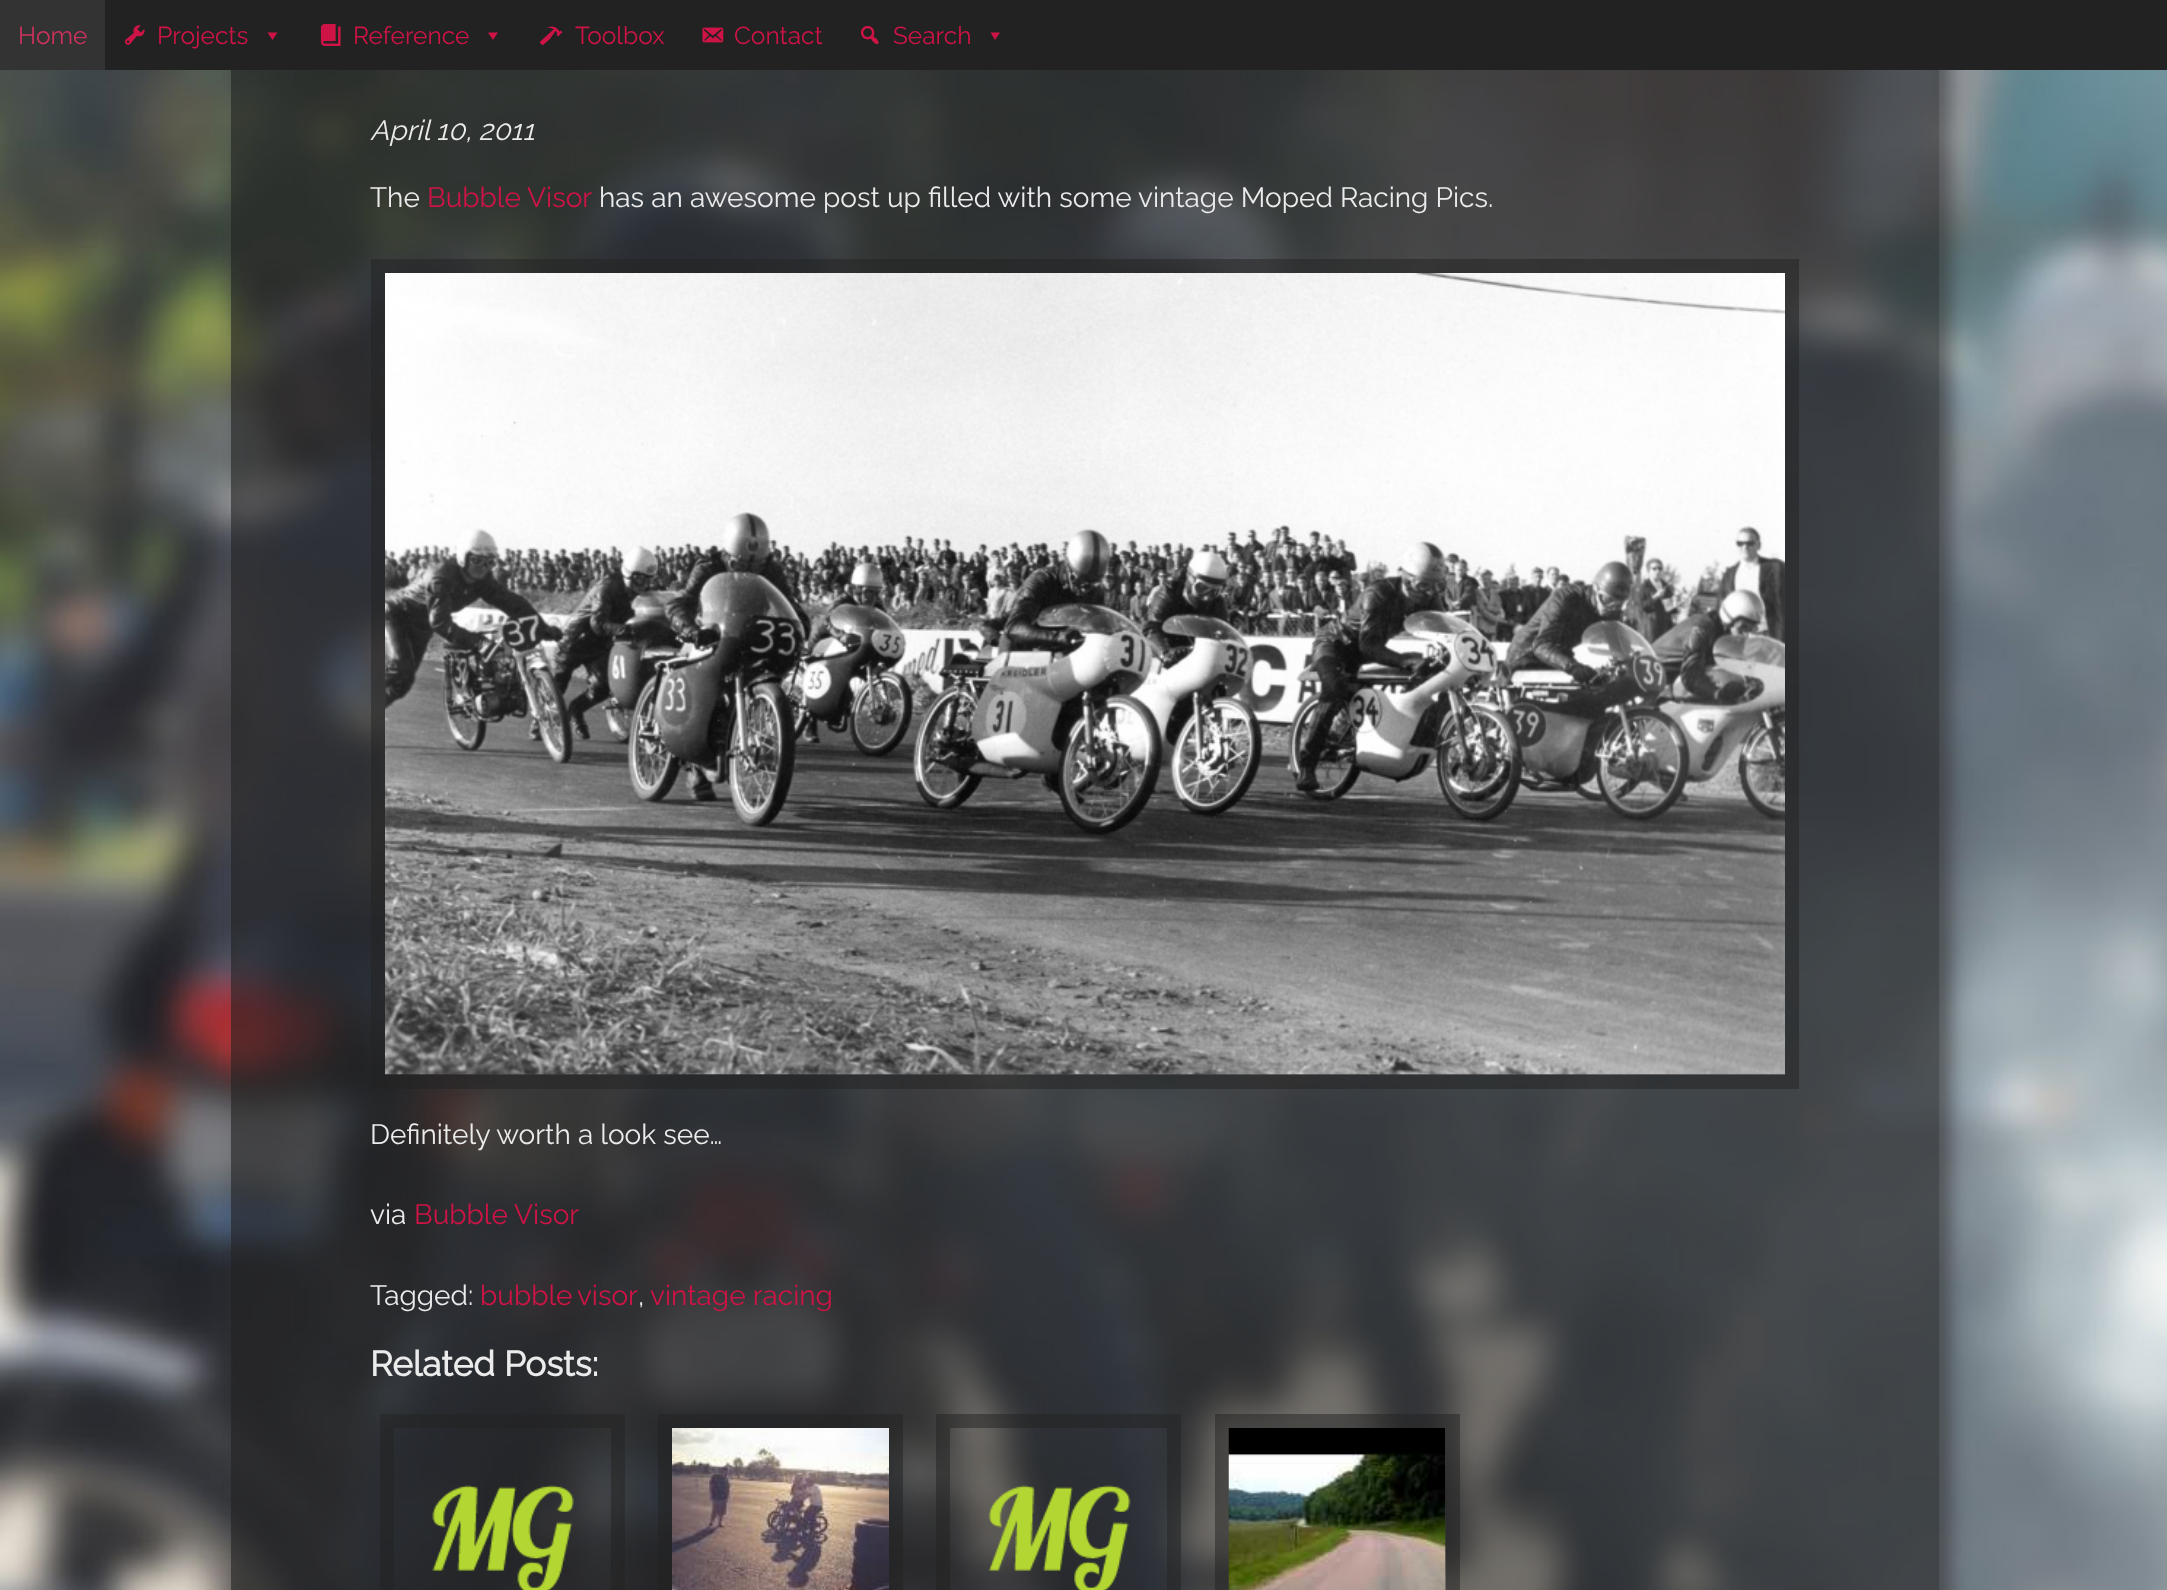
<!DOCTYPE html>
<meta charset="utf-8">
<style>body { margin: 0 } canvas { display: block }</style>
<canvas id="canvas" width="2167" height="1590"></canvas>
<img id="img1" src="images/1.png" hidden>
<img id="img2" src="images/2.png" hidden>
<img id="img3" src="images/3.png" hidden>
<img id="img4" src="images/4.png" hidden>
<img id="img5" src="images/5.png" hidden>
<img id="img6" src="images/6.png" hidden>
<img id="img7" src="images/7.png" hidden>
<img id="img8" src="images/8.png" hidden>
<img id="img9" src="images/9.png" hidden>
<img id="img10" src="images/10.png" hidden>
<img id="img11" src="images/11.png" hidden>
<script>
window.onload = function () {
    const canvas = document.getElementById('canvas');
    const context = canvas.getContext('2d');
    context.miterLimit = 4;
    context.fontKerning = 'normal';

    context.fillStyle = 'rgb(255, 255, 255)';
    context.fillRect(0, 0, 2167, 1590);
    context.drawImage(document.getElementById('img1'), 0, 70, 2167, 1520);
    context.save();
    context.beginPath();
    context.moveTo(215, 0);
    context.lineTo(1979, 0);
    context.lineTo(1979, 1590);
    context.lineTo(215, 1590);
    context.closePath();
    context.moveTo(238, -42);
    context.lineTo(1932, -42);
    context.bezierCurveTo(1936, -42, 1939, -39, 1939, -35);
    context.lineTo(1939, 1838);
    context.bezierCurveTo(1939, 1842, 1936, 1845, 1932, 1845);
    context.lineTo(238, 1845);
    context.bezierCurveTo(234, 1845, 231, 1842, 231, 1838);
    context.lineTo(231, -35);
    context.bezierCurveTo(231, -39, 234, -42, 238, -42);
    context.closePath();
    context.clip('evenodd');
    context.fillStyle = 'rgba(50, 50, 50, 0.6)';
    context.filter = 'blur(9px)';
    context.beginPath();
    context.roundRect(243, -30, 1708, 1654, 7);
    context.fill();
    context.filter = 'none';
    context.restore();
    context.fillStyle = 'rgb(34, 34, 34)';
    context.fillRect(105, 0, 2062, 70);
    context.fillStyle = 'rgb(51, 51, 51)';
    context.fillRect(0, 0, 105, 70);
    context.drawImage(document.getElementById('img2'), 125, 25, 20, 20);
    context.fillStyle = 'rgb(206, 20, 70)';
    context.beginPath();
    context.moveTo(277.5, 32.5);
    context.lineTo(272.5, 40);
    context.lineTo(267.5, 32.5);
    context.closePath();
    context.fill();
    context.drawImage(document.getElementById('img3'), 320, 24, 21, 22);
    context.beginPath();
    context.moveTo(498, 32.5);
    context.lineTo(493, 40);
    context.lineTo(488, 32.5);
    context.closePath();
    context.fill();
    context.drawImage(document.getElementById('img4'), 540, 26, 23, 19);
    context.drawImage(document.getElementById('img5'), 702, 27, 22, 16);
    context.drawImage(document.getElementById('img6'), 860, 25, 19, 20);
    context.beginPath();
    context.moveTo(1000, 32.5);
    context.lineTo(995, 40);
    context.lineTo(990.5, 32.5);
    context.closePath();
    context.fill();
    context.fillStyle = 'rgba(34, 34, 34, 0.6)';
    context.fillRect(231, 70, 1708, 1520);
    context.beginPath();
    context.rect(378, 266, 1414, 816);
    context.strokeStyle = 'rgba(34, 34, 34, 0.5)';
    context.lineWidth = 14;
    context.stroke();
    context.drawImage(document.getElementById('img7'), 385, 273, 1400, 802);
    context.beginPath();
    context.rect(387, 1421, 231, 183);
    context.stroke();
    context.drawImage(document.getElementById('img8'), 432, 1485, 142, 105);
    context.beginPath();
    context.rect(665, 1421, 231, 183);
    context.stroke();
    context.drawImage(document.getElementById('img9'), 672, 1428, 217, 162);
    context.beginPath();
    context.rect(943, 1421, 231, 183);
    context.stroke();
    context.drawImage(document.getElementById('img10'), 988, 1485, 143, 105);
    context.beginPath();
    context.rect(1222, 1421, 231, 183);
    context.stroke();
    context.drawImage(document.getElementById('img11'), 1228, 1428, 218, 162);
    context.font = '100 24.5px Raleway';
    context.fillStyle = 'rgb(204, 50, 92)';
    context.fillText('Home', 18, 44);
    context.fillStyle = 'rgb(206, 20, 70)';
    context.fillText('Projects', 157, 44);
    context.fillText('Reference', 353, 44);
    context.fillText('Toolbox', 575, 44);
    context.fillText('Contact', 734, 44);
    context.fillText('Search', 893, 44);
    context.font = 'italic 100 28px Raleway';
    context.fillStyle = 'rgb(235, 235, 235)';
    context.fillText('April 10, 2011', 370, 140);
    context.font = '100 28px Raleway';
    context.fillText('The', 370, 207);
    context.fillStyle = 'rgb(206, 20, 70)';
    context.fillText('Bubble Visor', 427, 207);
    context.fillStyle = 'rgb(235, 235, 235)';
    context.fillText('has an awesome post up filled with some vintage Moped Racing Pics.', 599, 207);
    context.fillText('Definitely worth a look see…', 370, 1144);
    context.fillText('via', 370, 1224);
    context.fillStyle = 'rgb(206, 20, 70)';
    context.fillText('Bubble Visor', 414, 1224);
    context.fillStyle = 'rgb(235, 235, 235)';
    context.fillText('Tagged:', 370, 1305);
    context.wordSpacing = '-2px';
    context.fillStyle = 'rgb(206, 20, 70)';
    context.fillText('bubble visor', 480, 1305);
    context.wordSpacing = '0px';
    context.fillStyle = 'rgb(235, 235, 235)';
    context.fillText(',', 638, 1305);
    context.fillStyle = 'rgb(206, 20, 70)';
    context.fillText('vintage racing', 650, 1305);
    context.font = 'bold 35px Raleway';
    context.fillStyle = 'rgb(235, 235, 235)';
    context.fillText('Related Posts:', 370, 1376);
};
</script>
